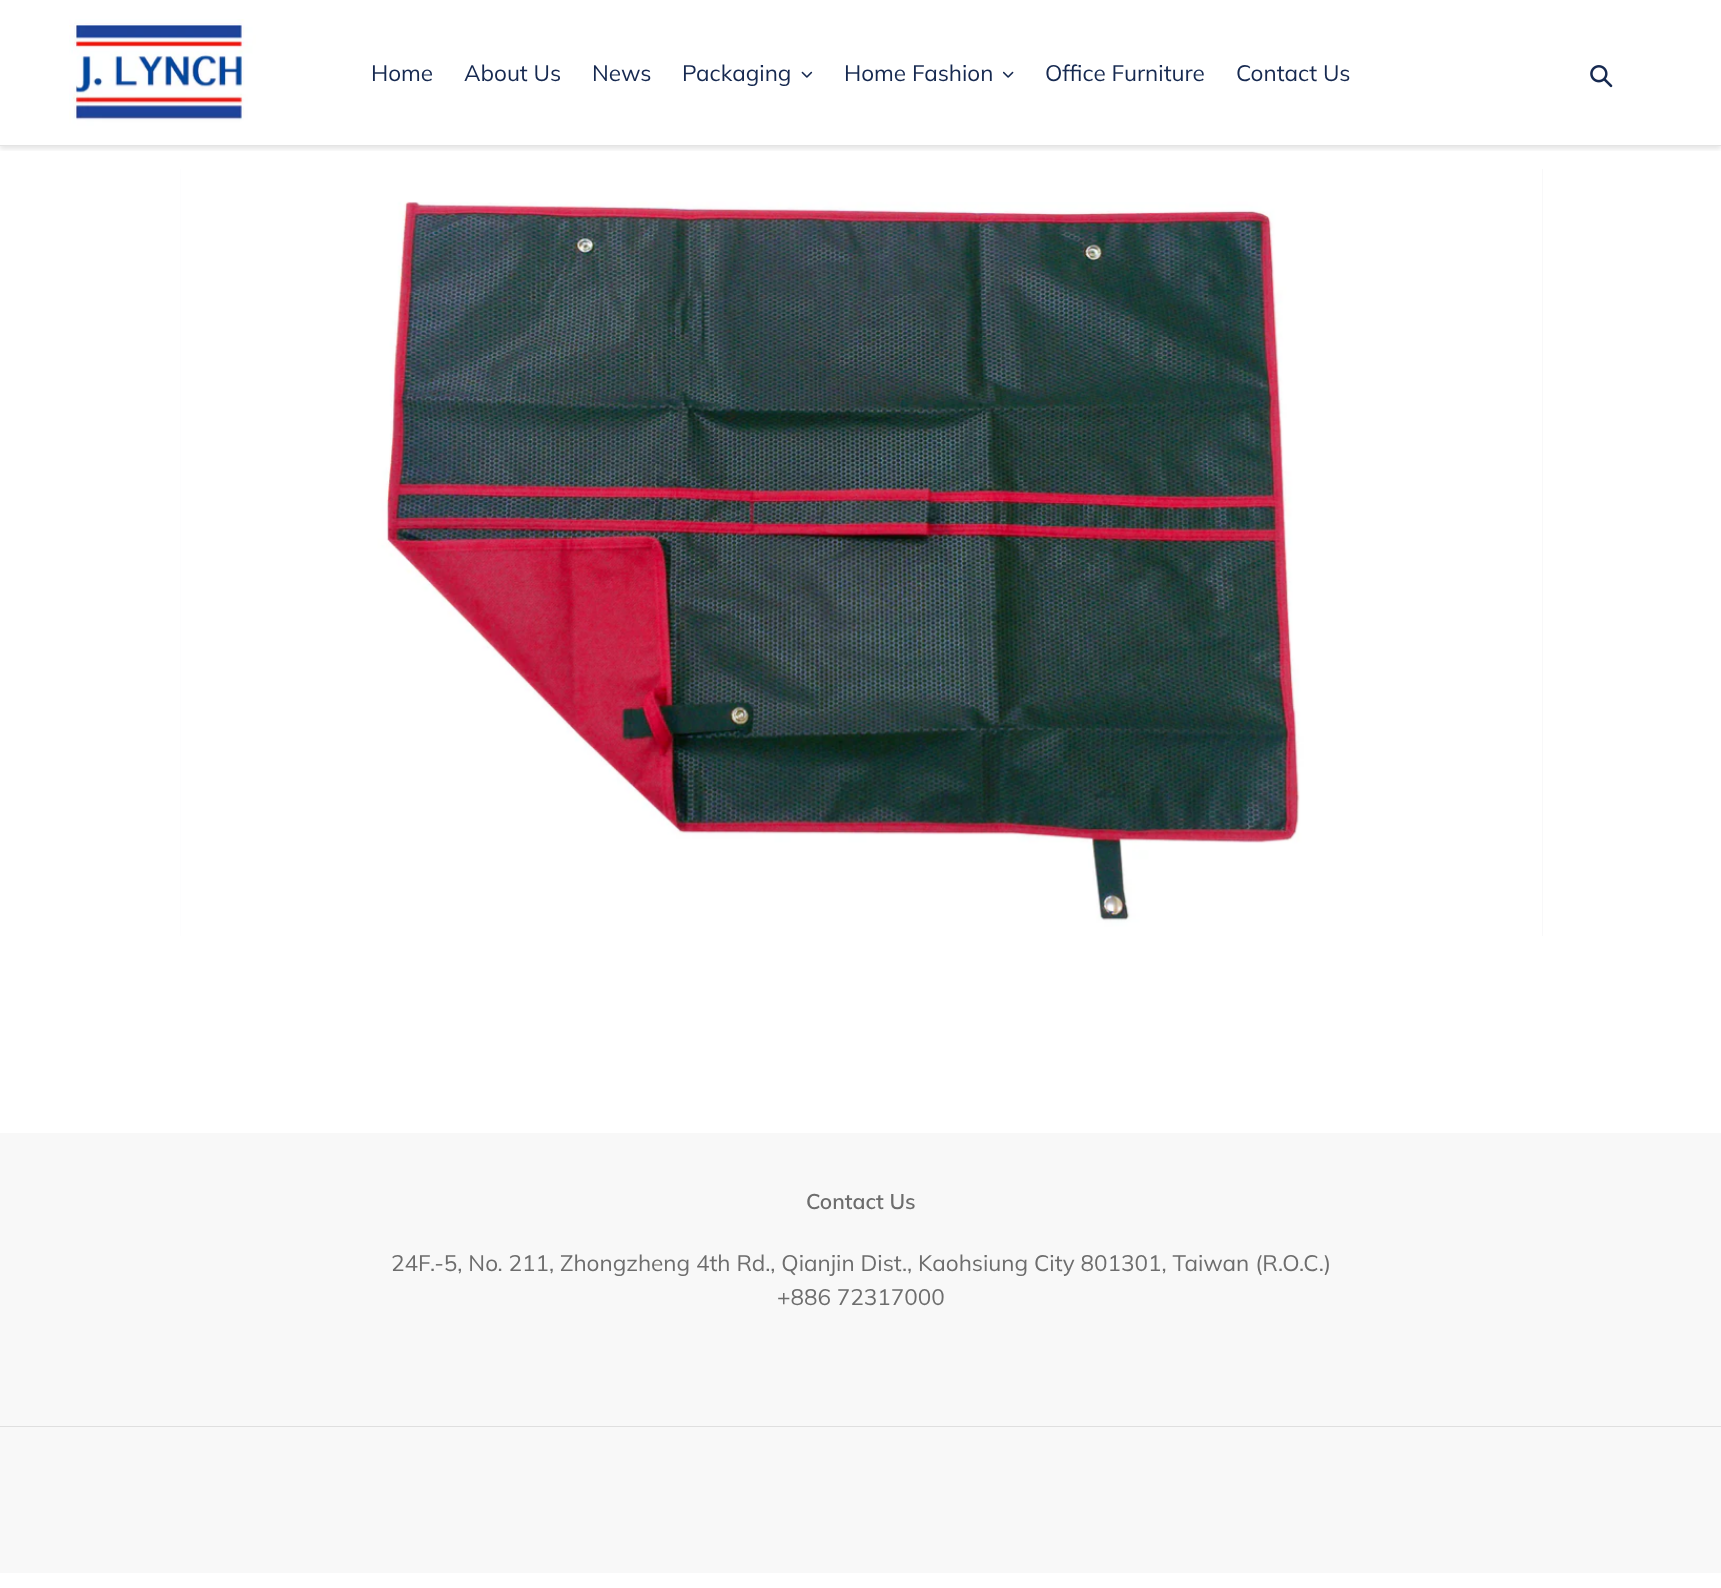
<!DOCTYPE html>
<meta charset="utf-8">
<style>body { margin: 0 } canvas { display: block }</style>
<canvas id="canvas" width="1721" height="1588"></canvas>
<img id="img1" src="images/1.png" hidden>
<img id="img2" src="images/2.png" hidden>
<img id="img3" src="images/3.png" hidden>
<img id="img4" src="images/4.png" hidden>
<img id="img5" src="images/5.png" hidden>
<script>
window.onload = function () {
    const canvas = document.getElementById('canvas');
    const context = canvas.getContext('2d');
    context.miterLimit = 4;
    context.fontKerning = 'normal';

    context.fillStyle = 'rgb(255, 255, 255)';
    context.fillRect(0, 0, 1721, 1588);
    context.save();
    context.beginPath();
    context.rect(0, 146, 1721, 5);
    context.clip();
    context.fillStyle = 'rgba(0, 0, 0, 0.1)';
    context.filter = 'blur(2.5px)';
    context.beginPath();
    context.rect(0, 3, 1721, 146);
    context.fill();
    context.filter = 'none';
    context.restore();
    context.fillStyle = 'rgb(228, 228, 228)';
    context.fillRect(0, 145, 1721, 1);
    context.drawImage(document.getElementById('img1'), 69, 19, 187, 107);
    context.drawImage(document.getElementById('img2'), 801, 71, 12, 7);
    context.drawImage(document.getElementById('img3'), 1003, 71, 11, 7);
    context.drawImage(document.getElementById('img4'), 1590, 65, 23, 23);
    context.fillStyle = 'rgb(242, 243, 245)';
    context.fillRect(180, 169, 1363, 767);
    context.drawImage(document.getElementById('img5'), 180, 169, 1363, 767);
    context.fillStyle = 'rgb(248, 248, 248)';
    context.fillRect(0, 1133, 1721, 440);
    context.fillStyle = 'rgb(223, 223, 223)';
    context.fillRect(0, 1426, 1721, 1);
    context.font = '22.5px Muli';
    context.fillStyle = 'rgb(22, 41, 80)';
    context.fillText('Home', 371, 81);
    context.fillText('About Us', 464, 81);
    context.fillText('News', 592, 81);
    context.fillText('Packaging', 682, 81);
    context.fillText('Home Fashion', 844, 81);
    context.fillText('Office Furniture', 1045, 81);
    context.fillText('Contact Us', 1236, 81);
    context.font = '600 21.25px Muli';
    context.fillStyle = 'rgb(109, 109, 109)';
    context.fillText('Contact Us', 806, 1209);
    context.font = '22.5px Muli';
    context.fillText('24F.-5, No. 211, Zhongzheng 4th Rd., Qianjin Dist., Kaohsiung City 801301, Taiwan (R.O.C.)', 391, 1271);
    context.fillText('+886 72317000', 777, 1305);
};
</script>
